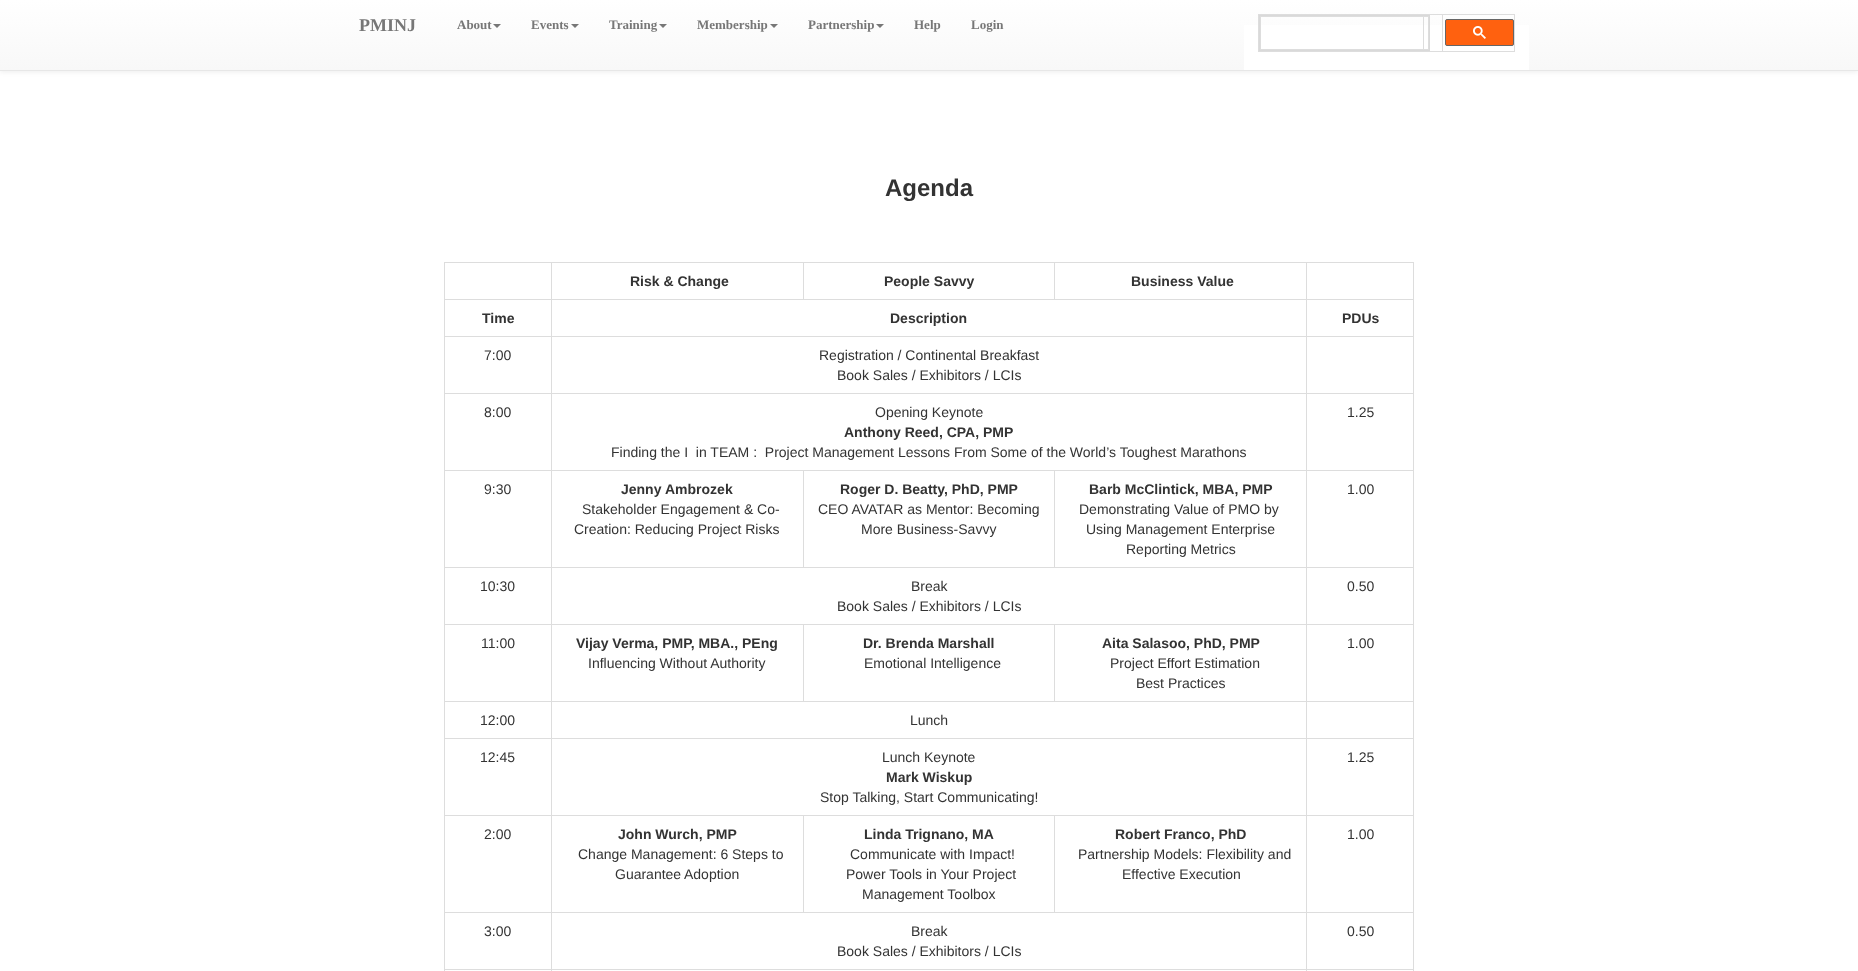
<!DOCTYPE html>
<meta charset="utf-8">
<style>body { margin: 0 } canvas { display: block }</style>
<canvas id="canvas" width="1858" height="971"></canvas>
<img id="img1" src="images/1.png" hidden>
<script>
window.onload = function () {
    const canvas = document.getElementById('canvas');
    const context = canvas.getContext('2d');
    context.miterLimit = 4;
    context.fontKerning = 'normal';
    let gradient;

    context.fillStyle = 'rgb(255, 255, 255)';
    context.fillRect(0, 0, 1858, 971);
    context.fillStyle = 'rgba(0, 0, 0, 0.07)';
    context.filter = 'blur(2.5px)';
    context.beginPath();
    context.rect(0, 1, 1858, 71);
    context.fill();
    context.filter = 'none';
    gradient = context.createLinearGradient(929, 0, 929, 70);
    gradient.addColorStop(0, 'rgb(255, 255, 255)');
    gradient.addColorStop(1, 'rgb(248, 248, 248)');
    context.fillStyle = gradient;
    context.fillRect(0, 0, 1858, 70);
    context.fillStyle = 'rgb(231, 231, 231)';
    context.fillRect(0, 70, 1858, 1);
    context.fillStyle = 'rgb(119, 119, 119)';
    context.beginPath();
    context.moveTo(493, 24);
    context.lineTo(501, 24);
    context.lineTo(497, 28);
    context.closePath();
    context.fill();
    context.beginPath();
    context.moveTo(571, 24);
    context.lineTo(579, 24);
    context.lineTo(575, 28);
    context.closePath();
    context.fill();
    context.beginPath();
    context.moveTo(659, 24);
    context.lineTo(667, 24);
    context.lineTo(663, 28);
    context.closePath();
    context.fill();
    context.beginPath();
    context.moveTo(770, 24);
    context.lineTo(778, 24);
    context.lineTo(774, 28);
    context.closePath();
    context.fill();
    context.beginPath();
    context.moveTo(876, 24);
    context.lineTo(884, 24);
    context.lineTo(880, 28);
    context.closePath();
    context.fill();
    context.fillStyle = 'rgb(255, 255, 255)';
    context.fillRect(1244, 25, 285, 45);
    context.fillStyle = 'rgb(221, 221, 221)';
    context.fillRect(1442, 14, 73, 1);
    context.fillRect(1514, 14, 1, 38);
    context.fillRect(1442, 51, 73, 1);
    context.fillRect(1442, 14, 1, 38);
    context.fillRect(1258, 14, 185, 1);
    context.fillRect(1258, 51, 185, 1);
    context.fillRect(1258, 14, 1, 38);
    context.strokeStyle = 'rgb(217, 217, 217)';
    context.strokeRect(1259.5, 15.5, 170, 35);
    context.fillRect(1423, 16, 6, 1);
    context.fillRect(1428, 16, 1, 34);
    context.fillRect(1423, 49, 6, 1);
    context.fillRect(1423, 16, 1, 34);
    context.fillRect(1260, 16, 164, 1);
    context.fillRect(1260, 49, 164, 1);
    context.fillRect(1260, 16, 1, 34);
    context.fillStyle = 'rgb(255, 97, 15)';
    context.beginPath();
    context.roundRect(1445.5, 19.5, 68, 26, 1.5);
    context.fill();
    context.strokeStyle = 'rgb(102, 102, 102)';
    context.stroke();
    context.drawImage(document.getElementById('img1'), 1473, 26, 13, 13);
    context.fillStyle = 'rgb(221, 221, 221)';
    context.fillRect(1306, 262, 108, 1);
    context.fillRect(1306, 299, 108, 1);
    context.fillRect(1306, 336, 108, 1);
    context.fillRect(1306, 393, 108, 1);
    context.fillRect(1306, 470, 108, 1);
    context.fillRect(1306, 567, 108, 1);
    context.fillRect(1306, 624, 108, 1);
    context.fillRect(1306, 701, 108, 1);
    context.fillRect(1306, 738, 108, 1);
    context.fillRect(1306, 815, 108, 1);
    context.fillRect(1306, 912, 108, 1);
    context.fillRect(1306, 969, 108, 1);
    context.fillRect(1306, 969, 1, 2);
    context.fillRect(551, 969, 756, 1);
    context.fillRect(1306, 912, 1, 58);
    context.fillRect(551, 912, 756, 1);
    context.fillRect(1306, 815, 1, 98);
    context.fillRect(1054, 815, 253, 1);
    context.fillRect(1306, 738, 1, 78);
    context.fillRect(551, 738, 756, 1);
    context.fillRect(1306, 701, 1, 38);
    context.fillRect(551, 701, 756, 1);
    context.fillRect(1306, 624, 1, 78);
    context.fillRect(1054, 624, 253, 1);
    context.fillRect(1306, 567, 1, 58);
    context.fillRect(551, 567, 756, 1);
    context.fillRect(1306, 470, 1, 98);
    context.fillRect(1054, 470, 253, 1);
    context.fillRect(1306, 393, 1, 78);
    context.fillRect(551, 393, 756, 1);
    context.fillRect(1306, 336, 1, 58);
    context.fillRect(551, 336, 756, 1);
    context.fillRect(1306, 299, 1, 38);
    context.fillRect(551, 299, 756, 1);
    context.fillRect(1306, 262, 1, 38);
    context.fillRect(1054, 262, 253, 1);
    context.fillRect(1054, 262, 1, 38);
    context.fillRect(803, 262, 252, 1);
    context.fillRect(803, 262, 1, 38);
    context.fillRect(551, 262, 253, 1);
    context.fillRect(1054, 470, 1, 98);
    context.fillRect(803, 470, 252, 1);
    context.fillRect(803, 470, 1, 98);
    context.fillRect(551, 470, 253, 1);
    context.fillRect(1054, 624, 1, 78);
    context.fillRect(803, 624, 252, 1);
    context.fillRect(803, 624, 1, 78);
    context.fillRect(551, 624, 253, 1);
    context.fillRect(1054, 815, 1, 98);
    context.fillRect(803, 815, 252, 1);
    context.fillRect(803, 815, 1, 98);
    context.fillRect(551, 815, 253, 1);
    context.fillRect(551, 969, 1, 2);
    context.fillRect(444, 969, 108, 1);
    context.fillRect(551, 912, 1, 58);
    context.fillRect(444, 912, 108, 1);
    context.fillRect(551, 815, 1, 98);
    context.fillRect(444, 815, 108, 1);
    context.fillRect(551, 738, 1, 78);
    context.fillRect(444, 738, 108, 1);
    context.fillRect(551, 701, 1, 38);
    context.fillRect(444, 701, 108, 1);
    context.fillRect(551, 624, 1, 78);
    context.fillRect(444, 624, 108, 1);
    context.fillRect(551, 567, 1, 58);
    context.fillRect(444, 567, 108, 1);
    context.fillRect(551, 470, 1, 98);
    context.fillRect(444, 470, 108, 1);
    context.fillRect(551, 393, 1, 78);
    context.fillRect(444, 393, 108, 1);
    context.fillRect(551, 336, 1, 58);
    context.fillRect(444, 336, 108, 1);
    context.fillRect(551, 299, 1, 38);
    context.fillRect(444, 299, 108, 1);
    context.fillRect(551, 262, 1, 38);
    context.fillRect(444, 262, 108, 1);
    context.fillRect(444, 969, 1, 2);
    context.fillRect(444, 912, 1, 58);
    context.fillRect(444, 815, 1, 98);
    context.fillRect(444, 738, 1, 78);
    context.fillRect(444, 701, 1, 38);
    context.fillRect(444, 624, 1, 78);
    context.fillRect(444, 567, 1, 58);
    context.fillRect(444, 470, 1, 98);
    context.fillRect(444, 393, 1, 78);
    context.fillRect(444, 336, 1, 58);
    context.fillRect(444, 299, 1, 38);
    context.fillRect(444, 262, 1, 38);
    context.fillRect(1413, 969, 1, 2);
    context.fillRect(1413, 912, 1, 58);
    context.fillRect(1413, 815, 1, 98);
    context.fillRect(1413, 738, 1, 78);
    context.fillRect(1413, 701, 1, 38);
    context.fillRect(1413, 624, 1, 78);
    context.fillRect(1413, 567, 1, 58);
    context.fillRect(1413, 470, 1, 98);
    context.fillRect(1413, 393, 1, 78);
    context.fillRect(1413, 336, 1, 58);
    context.fillRect(1413, 299, 1, 38);
    context.fillRect(1413, 262, 1, 38);
    context.font = 'bold 18px Liberation Serif';
    context.fillStyle = 'rgb(119, 119, 119)';
    context.fillText('PMINJ', 359, 31);
    context.font = 'bold 13px Liberation Serif';
    context.fillText('About', 457, 29);
    context.fillText('Events', 531, 29);
    context.fillText('Training', 609, 29);
    context.fillText('Membership', 697, 29);
    context.fillText('Partnership', 808, 29);
    context.fillText('Help', 914, 29);
    context.fillText('Login', 971, 29);
    context.font = 'bold 24px Liberation Sans';
    context.fillStyle = 'rgb(51, 51, 51)';
    context.fillText('Agenda', 885, 196);
    context.font = 'bold 14px Liberation Sans';
    context.fillText('Risk & Change', 630, 286);
    context.fillText('People Savvy', 884, 286);
    context.fillText('Business Value', 1131, 286);
    context.fillText('Time', 482, 323);
    context.fillText('Description', 890, 323);
    context.fillText('PDUs', 1342, 323);
    context.font = '14px Liberation Sans';
    context.fillText('7:00', 484, 360);
    context.fillText('Registration / Continental Breakfast', 819, 360);
    context.fillText('Book Sales / Exhibitors / LCIs', 837, 380);
    context.fillText('8:00', 484, 417);
    context.fillText('Opening Keynote', 875, 417);
    context.font = 'bold 14px Liberation Sans';
    context.fillText('Anthony Reed, CPA, PMP', 844, 437);
    context.font = '14px Liberation Sans';
    context.fillText('Finding the I  in TEAM :  Project Management Lessons From Some of the World’s Toughest Marathons', 611, 457);
    context.fillText('1.25', 1347, 417);
    context.fillText('9:30', 484, 494);
    context.font = 'bold 14px Liberation Sans';
    context.fillText('Jenny', 621, 494);
    context.fillText('Ambrozek', 665, 494);
    context.font = '14px Liberation Sans';
    context.fillText('Stakeholder Engagement & Co-', 582, 514);
    context.fillText('Creation: Reducing Project Risks', 574, 534);
    context.font = 'bold 14px Liberation Sans';
    context.fillText('Roger D. Beatty, PhD, PMP', 840, 494);
    context.font = '14px Liberation Sans';
    context.fillText('CEO AVATAR as Mentor: Becoming', 818, 514);
    context.fillText('More Business-Savvy', 861, 534);
    context.font = 'bold 14px Liberation Sans';
    context.fillText('Barb McClintick, MBA, PMP', 1089, 494);
    context.font = '14px Liberation Sans';
    context.fillText('Demonstrating Value of PMO by', 1079, 514);
    context.fillText('Using Management Enterprise', 1086, 534);
    context.fillText('Reporting Metrics', 1126, 554);
    context.fillText('1.00', 1347, 494);
    context.fillText('10:30', 480, 591);
    context.fillText('Break', 911, 591);
    context.fillText('Book Sales / Exhibitors / LCIs', 837, 611);
    context.fillText('0.50', 1347, 591);
    context.fillText('11:00', 481, 648);
    context.font = 'bold 14px Liberation Sans';
    context.fillText('Vijay Verma, PMP, MBA., PEng', 576, 648);
    context.font = '14px Liberation Sans';
    context.fillText('Influencing Without Authority', 588, 668);
    context.font = 'bold 14px Liberation Sans';
    context.fillText('Dr. Brenda Marshall', 863, 648);
    context.font = '14px Liberation Sans';
    context.fillText('Emotional Intelligence', 864, 668);
    context.font = 'bold 14px Liberation Sans';
    context.fillText('Aita Salasoo, PhD, PMP', 1102, 648);
    context.font = '14px Liberation Sans';
    context.fillText('Project Effort Estimation', 1110, 668);
    context.fillText('Best Practices', 1136, 688);
    context.fillText('1.00', 1347, 648);
    context.fillText('12:00', 480, 725);
    context.fillText('Lunch', 910, 725);
    context.fillText('12:45', 480, 762);
    context.fillText('Lunch Keynote', 882, 762);
    context.font = 'bold 14px Liberation Sans';
    context.fillText('Mark Wiskup', 886, 782);
    context.font = '14px Liberation Sans';
    context.fillText('Stop Talking, Start Communicating!', 820, 802);
    context.fillText('1.25', 1347, 762);
    context.fillText('2:00', 484, 839);
    context.font = 'bold 14px Liberation Sans';
    context.fillText('John Wurch, PMP', 618, 839);
    context.font = '14px Liberation Sans';
    context.fillText('Change Management: 6 Steps to', 578, 859);
    context.fillText('Guarantee', 615, 879);
    context.fillText('Adoption', 684, 879);
    context.font = 'bold 14px Liberation Sans';
    context.fillText('Linda Trignano, MA', 864, 839);
    context.font = '14px Liberation Sans';
    context.fillText('Communicate with Impact!', 850, 859);
    context.fillText('Power Tools in Your Project', 846, 879);
    context.fillText('Management Toolbox', 862, 899);
    context.font = 'bold 14px Liberation Sans';
    context.fillText('Robert Franco, PhD', 1115, 839);
    context.font = '14px Liberation Sans';
    context.fillText('Partnership Models: Flexibility and', 1078, 859);
    context.fillText('Effective Execution', 1122, 879);
    context.fillText('1.00', 1347, 839);
    context.fillText('3:00', 484, 936);
    context.fillText('Break', 911, 936);
    context.fillText('Book Sales / Exhibitors / LCIs', 837, 956);
    context.fillText('0.50', 1347, 936);
};
</script>
